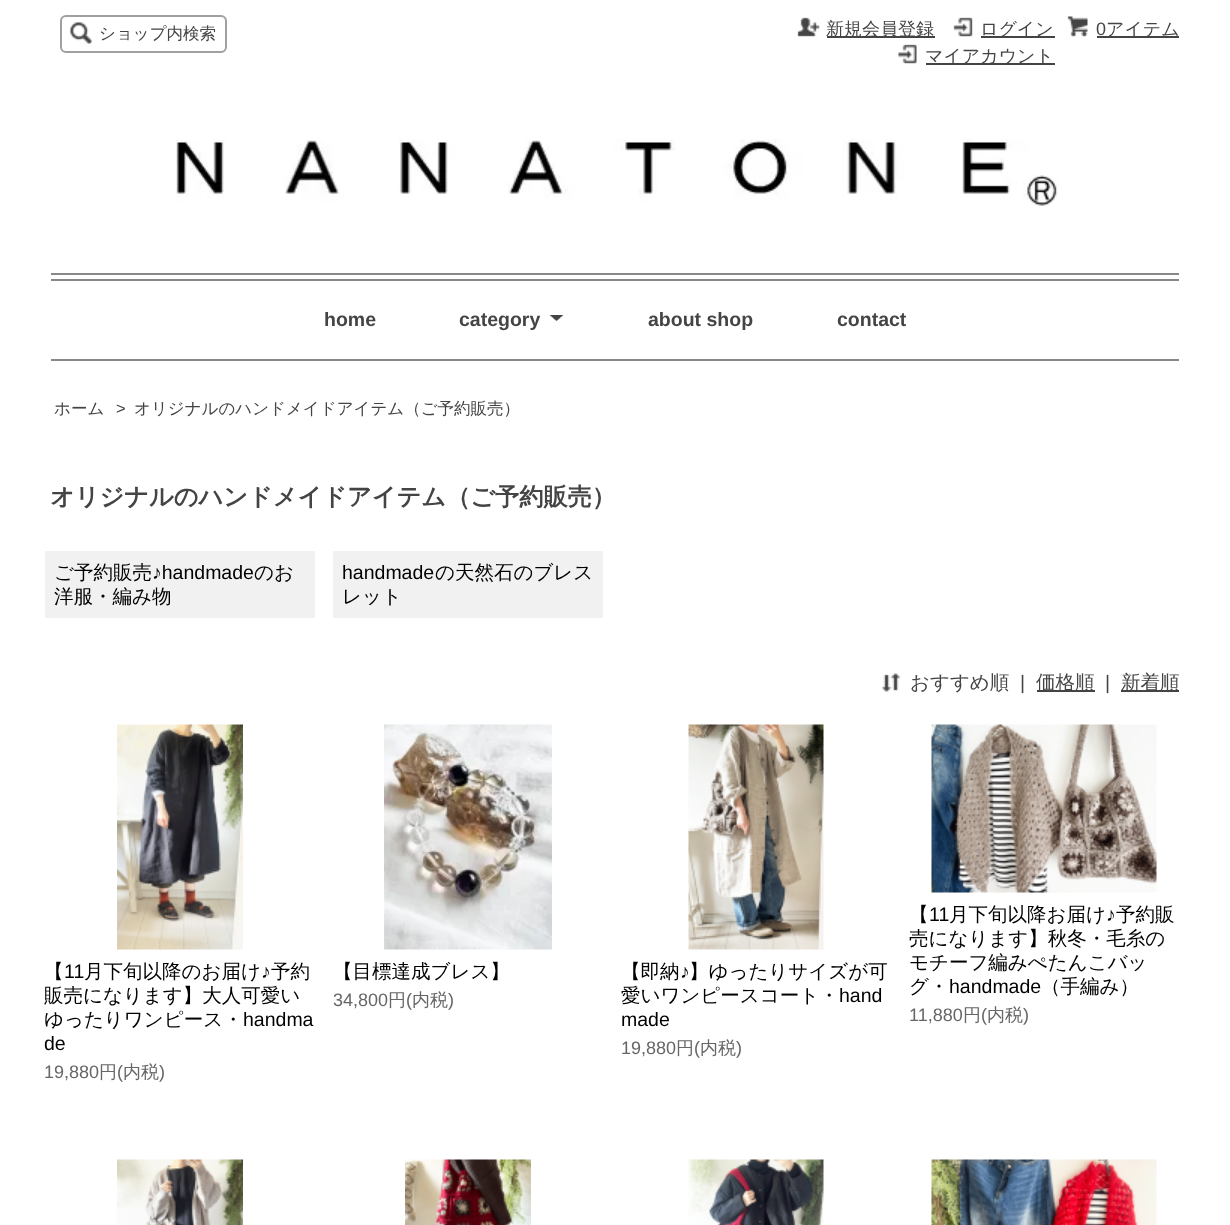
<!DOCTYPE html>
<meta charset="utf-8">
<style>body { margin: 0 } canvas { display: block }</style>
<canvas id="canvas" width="1230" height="1225"></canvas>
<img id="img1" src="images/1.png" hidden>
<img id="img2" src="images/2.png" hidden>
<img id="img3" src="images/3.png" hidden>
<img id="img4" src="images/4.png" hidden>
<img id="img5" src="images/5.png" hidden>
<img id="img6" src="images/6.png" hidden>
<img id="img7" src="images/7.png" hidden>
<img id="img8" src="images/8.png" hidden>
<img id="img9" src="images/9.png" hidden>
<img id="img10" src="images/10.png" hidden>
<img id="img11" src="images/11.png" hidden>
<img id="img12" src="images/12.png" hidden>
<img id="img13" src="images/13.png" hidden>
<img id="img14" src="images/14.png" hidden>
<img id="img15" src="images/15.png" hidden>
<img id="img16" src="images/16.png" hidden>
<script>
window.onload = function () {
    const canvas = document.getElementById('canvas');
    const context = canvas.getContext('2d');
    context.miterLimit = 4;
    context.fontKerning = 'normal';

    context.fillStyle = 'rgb(255, 255, 255)';
    context.fillRect(0, 0, 1230, 1225);
    context.beginPath();
    context.roundRect(61, 16, 165, 36, 5);
    context.strokeStyle = 'rgb(160, 160, 160)';
    context.lineWidth = 2;
    context.stroke();
    context.drawImage(document.getElementById('img1'), 70, 22, 22, 22);
    context.drawImage(document.getElementById('img2'), 797, 17, 23, 20);
    context.fillStyle = 'rgb(68, 68, 68)';
    context.fillRect(827, 36, 108, 2);
    context.drawImage(document.getElementById('img3'), 953, 17, 20, 20);
    context.fillRect(981, 36, 74, 2);
    context.drawImage(document.getElementById('img4'), 898, 44, 19, 20);
    context.fillRect(926, 63, 129, 2);
    context.drawImage(document.getElementById('img5'), 1067, 16, 21, 21);
    context.fillRect(1097, 36, 82, 2);
    context.fillStyle = 'rgb(136, 136, 136)';
    context.fillRect(51, 273, 1128, 2);
    context.drawImage(document.getElementById('img6'), 176, 139, 882, 67);
    context.fillRect(51, 279, 1128, 2);
    context.fillRect(51, 359, 1128, 2);
    context.drawImage(document.getElementById('img7'), 549, 315, 15, 6);
    context.fillStyle = 'rgb(241, 241, 241)';
    context.fillRect(45, 551, 270, 67);
    context.fillRect(333, 551, 270, 67);
    context.drawImage(document.getElementById('img8'), 881, 673, 20, 19);
    context.fillStyle = 'rgb(68, 68, 68)';
    context.fillRect(1037, 690, 58, 2);
    context.fillRect(1121, 690, 58, 2);
    context.drawImage(document.getElementById('img9'), 117, 724, 126, 226);
    context.drawImage(document.getElementById('img10'), 384, 724, 168, 226);
    context.drawImage(document.getElementById('img11'), 688, 724, 136, 226);
    context.drawImage(document.getElementById('img12'), 931, 724, 226, 169);
    context.drawImage(document.getElementById('img13'), 117, 1159, 126, 66);
    context.drawImage(document.getElementById('img14'), 405, 1159, 126, 66);
    context.drawImage(document.getElementById('img15'), 688, 1159, 136, 66);
    context.drawImage(document.getElementById('img16'), 931, 1159, 226, 66);
    context.font = '500 16.5px WenQuanYi Zen Hei';
    context.fillText('ショップ内検索', 99, 39);
    context.font = '500 18px WenQuanYi Zen Hei';
    context.fillText('新規会員登録', 826, 35);
    context.fillText('ログイン', 980, 35);
    context.fillText('マイアカウント', 925, 62);
    context.font = '18px Liberation Sans';
    context.fillText('0', 1096, 35);
    context.font = '500 18px WenQuanYi Zen Hei';
    context.fillText('アイテム', 1106, 35);
    context.font = 'bold 19.5px Liberation Sans';
    context.fillText('home', 324, 326);
    context.fillText('category', 459, 326);
    context.fillText('about shop', 648, 326);
    context.fillText('contact', 837, 326);
    context.font = '500 16.5px WenQuanYi Zen Hei';
    context.fillText('ホーム', 54, 414);
    context.font = '16.5px Liberation Sans';
    context.fillText('>', 116, 414);
    context.font = '500 16.5px WenQuanYi Zen Hei';
    context.fillText('オリジナルのハンドメイドアイテム（ご予約販売）', 134, 414);
    context.font = 'bold 24.2px WenQuanYi Zen Hei';
    context.fillText('オリジナルのハンドメイドアイテム（ご予約販売）', 50, 505);
    context.font = '500 19.5px WenQuanYi Zen Hei';
    context.fillStyle = 'rgb(0, 0, 0)';
    context.fillText('ご予約販売', 54, 579);
    context.font = '19.5px Liberation Sans';
    context.fillText('♪handmade', 152, 579);
    context.font = '500 19.5px WenQuanYi Zen Hei';
    context.fillText('のお', 254, 579);
    context.fillText('洋服・編み物', 54, 603);
    context.font = '19.5px Liberation Sans';
    context.fillText('handmade', 342, 579);
    context.font = '500 19.5px WenQuanYi Zen Hei';
    context.fillText('の天然石のブレス', 435, 579);
    context.fillText('レット', 342, 603);
    context.fillStyle = 'rgb(68, 68, 68)';
    context.fillText('おすすめ順', 910, 689);
    context.font = '19.5px Liberation Sans';
    context.fillText('|', 1020, 689);
    context.font = '500 19.5px WenQuanYi Zen Hei';
    context.fillText('価格順', 1036, 689);
    context.font = '19.5px Liberation Sans';
    context.fillText('|', 1105, 689);
    context.font = '500 19.5px WenQuanYi Zen Hei';
    context.fillText('新着順', 1121, 689);
    context.fillStyle = 'rgb(0, 0, 0)';
    context.fillText('【', 44, 978);
    context.font = '19.5px Liberation Sans';
    context.fillText('11', 64, 978);
    context.font = '500 19.5px WenQuanYi Zen Hei';
    context.fillText('月下旬以降のお届け', 84, 978);
    context.font = '19.5px Liberation Sans';
    context.fillText('♪', 261, 978);
    context.font = '500 19.5px WenQuanYi Zen Hei';
    context.fillText('予約', 271, 978);
    context.fillText('販売になります】大人可愛い', 44, 1002);
    context.fillText('ゆったりワンピース・', 44, 1026);
    context.font = '19.5px Liberation Sans';
    context.fillText('handma', 243, 1026);
    context.fillText('de', 44, 1050);
    context.font = '18px Liberation Sans';
    context.fillStyle = 'rgb(102, 102, 102)';
    context.fillText('19,880', 44, 1078);
    context.font = '500 18px WenQuanYi Zen Hei';
    context.fillText('円', 99, 1078);
    context.font = '18px Liberation Sans';
    context.fillText('(', 117, 1078);
    context.font = '500 18px WenQuanYi Zen Hei';
    context.fillText('内税', 123, 1078);
    context.font = '18px Liberation Sans';
    context.fillText(')', 159, 1078);
    context.font = '500 19.5px WenQuanYi Zen Hei';
    context.fillStyle = 'rgb(0, 0, 0)';
    context.fillText('【目標達成ブレス】', 333, 978);
    context.font = '18px Liberation Sans';
    context.fillStyle = 'rgb(102, 102, 102)';
    context.fillText('34,800', 333, 1006);
    context.font = '500 18px WenQuanYi Zen Hei';
    context.fillText('円', 388, 1006);
    context.font = '18px Liberation Sans';
    context.fillText('(', 406, 1006);
    context.font = '500 18px WenQuanYi Zen Hei';
    context.fillText('内税', 412, 1006);
    context.font = '18px Liberation Sans';
    context.fillText(')', 448, 1006);
    context.font = '500 19.5px WenQuanYi Zen Hei';
    context.fillStyle = 'rgb(0, 0, 0)';
    context.fillText('【即納', 621, 978);
    context.font = '19.5px Liberation Sans';
    context.fillText('♪', 680, 978);
    context.font = '500 19.5px WenQuanYi Zen Hei';
    context.fillText('】ゆったりサイズが可', 689, 978);
    context.fillText('愛いワンピースコート・', 621, 1002);
    context.font = '19.5px Liberation Sans';
    context.fillText('hand', 839, 1002);
    context.fillText('made', 621, 1026);
    context.font = '18px Liberation Sans';
    context.fillStyle = 'rgb(102, 102, 102)';
    context.fillText('19,880', 621, 1054);
    context.font = '500 18px WenQuanYi Zen Hei';
    context.fillText('円', 676, 1054);
    context.font = '18px Liberation Sans';
    context.fillText('(', 694, 1054);
    context.font = '500 18px WenQuanYi Zen Hei';
    context.fillText('内税', 700, 1054);
    context.font = '18px Liberation Sans';
    context.fillText(')', 736, 1054);
    context.font = '500 19.5px WenQuanYi Zen Hei';
    context.fillStyle = 'rgb(0, 0, 0)';
    context.fillText('【', 909, 921);
    context.font = '19.5px Liberation Sans';
    context.fillText('11', 929, 921);
    context.font = '500 19.5px WenQuanYi Zen Hei';
    context.fillText('月下旬以降お届け', 949, 921);
    context.font = '19.5px Liberation Sans';
    context.fillText('♪', 1106, 921);
    context.font = '500 19.5px WenQuanYi Zen Hei';
    context.fillText('予約販', 1116, 921);
    context.fillText('売になります】秋冬・毛糸の', 909, 945);
    context.fillText('モチーフ編みぺたんこバッ', 909, 969);
    context.fillText('グ・', 909, 993);
    context.font = '19.5px Liberation Sans';
    context.fillText('handmade', 949, 993);
    context.font = '500 19.5px WenQuanYi Zen Hei';
    context.fillText('（手編み）', 1041, 993);
    context.font = '18px Liberation Sans';
    context.fillStyle = 'rgb(102, 102, 102)';
    context.fillText('11,880', 909, 1021);
    context.font = '500 18px WenQuanYi Zen Hei';
    context.fillText('円', 963, 1021);
    context.font = '18px Liberation Sans';
    context.fillText('(', 981, 1021);
    context.font = '500 18px WenQuanYi Zen Hei';
    context.fillText('内税', 987, 1021);
    context.font = '18px Liberation Sans';
    context.fillText(')', 1023, 1021);
};
</script>
